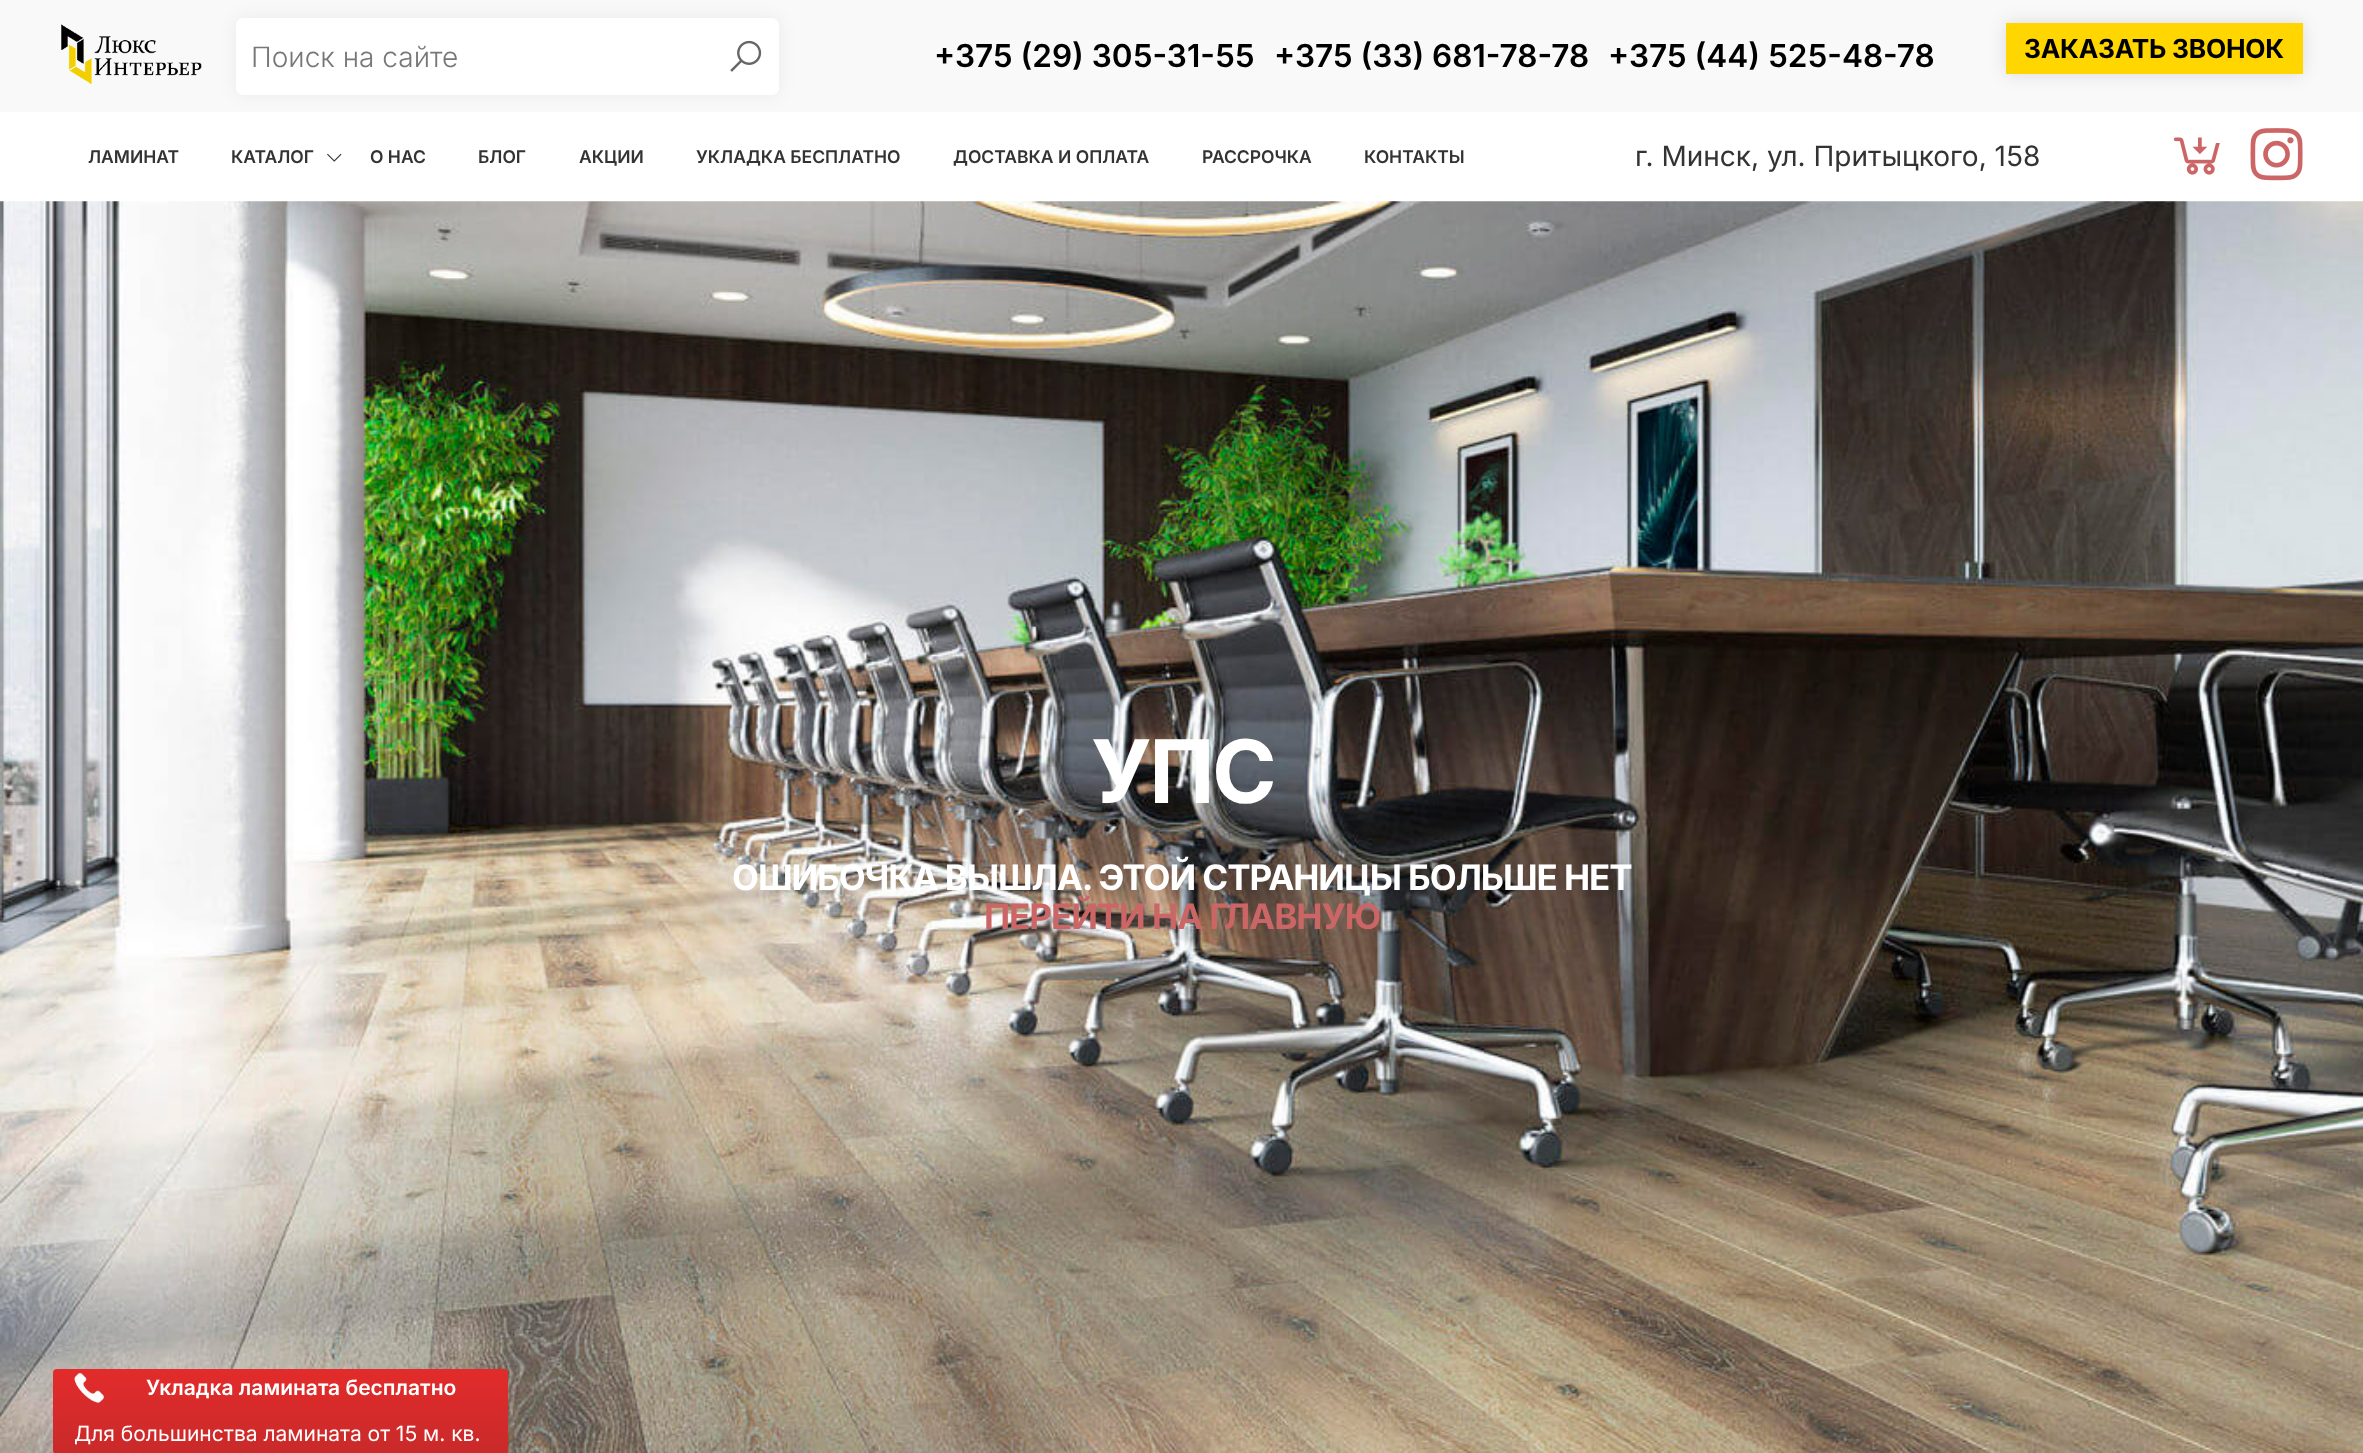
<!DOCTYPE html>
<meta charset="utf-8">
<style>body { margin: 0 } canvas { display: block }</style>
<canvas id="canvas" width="2363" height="1453"></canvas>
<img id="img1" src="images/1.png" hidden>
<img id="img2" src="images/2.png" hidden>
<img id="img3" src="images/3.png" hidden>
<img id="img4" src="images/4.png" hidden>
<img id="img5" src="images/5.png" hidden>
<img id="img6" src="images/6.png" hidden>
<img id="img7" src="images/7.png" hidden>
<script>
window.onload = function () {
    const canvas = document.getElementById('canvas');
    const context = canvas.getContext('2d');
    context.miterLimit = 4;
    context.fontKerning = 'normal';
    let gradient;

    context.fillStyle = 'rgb(255, 255, 255)';
    context.fillRect(0, 0, 2363, 1453);
    context.fillStyle = 'rgb(249, 249, 249)';
    context.fillRect(0, 0, 2363, 112);
    context.drawImage(document.getElementById('img1'), 61, 24, 141, 60);
    context.fillStyle = 'rgba(0, 0, 0, 0.06)';
    context.filter = 'blur(9px)';
    context.beginPath();
    context.roundRect(236, 18, 543, 77, 7);
    context.fill();
    context.filter = 'none';
    context.fillStyle = 'rgb(255, 255, 255)';
    context.beginPath();
    context.roundRect(236, 18, 543, 77, 7);
    context.fill();
    context.drawImage(document.getElementById('img2'), 730, 40, 32, 32);
    context.fillStyle = 'rgba(0, 0, 0, 0.12)';
    context.filter = 'blur(9px)';
    context.beginPath();
    context.rect(2006, 23, 297, 51);
    context.fill();
    context.filter = 'none';
    context.fillStyle = 'rgb(255, 214, 0)';
    context.fillRect(2006, 23, 297, 51);
    context.drawImage(document.getElementById('img3'), 327, 153, 15, 9);
    context.drawImage(document.getElementById('img4'), 2173, 137, 47, 38);
    context.drawImage(document.getElementById('img5'), 2250, 128, 53, 53);
    context.drawImage(document.getElementById('img6'), 0, 201, 2363, 1252);
    gradient = context.createLinearGradient(280, 1369, 280, 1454);
    gradient.addColorStop(0, 'rgb(227, 43, 43)');
    gradient.addColorStop(1, 'rgb(201, 42, 42)');
    context.fillStyle = gradient;
    context.beginPath();
    context.roundRect(53, 1369, 455, 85, 4);
    context.fill();
    context.drawImage(document.getElementById('img7'), 74, 1373, 31, 30);
    context.font = '300 28px Inter';
    context.fillStyle = 'rgb(119, 119, 119)';
    context.fillText('Поиск на сайте', 251, 67);
    context.font = '600 31.5px Inter';
    context.fillStyle = 'rgb(0, 0, 0)';
    context.fillText('+375 (29) 305-31-55', 934, 67);
    context.fillText('+375 (33) 681-78-78', 1274, 67);
    context.fillText('+375 (44) 525-48-78', 1608, 67);
    context.letterSpacing = '-0.25px';
    context.font = 'bold 26.25px Inter';
    context.fillText('ЗАКАЗАТЬ ЗВОНОК', 2024, 58);
    context.letterSpacing = '0px';
    context.font = '600 17.5px Inter';
    context.fillStyle = 'rgb(51, 51, 51)';
    context.fillText('ЛАМИНАТ', 88, 163);
    context.fillText('КАТАЛОГ', 231, 163);
    context.fillText('О НАС', 370, 163);
    context.fillText('БЛОГ', 478, 163);
    context.fillText('АКЦИИ', 579, 163);
    context.fillText('УКЛАДКА БЕСПЛАТНО', 696, 163);
    context.fillText('ДОСТАВКА И ОПЛАТА', 953, 163);
    context.fillText('РАССРОЧКА', 1202, 163);
    context.fillText('КОНТАКТЫ', 1364, 163);
    context.font = '28px Inter';
    context.fillText('г. Минск, ул. Притыцкого, 158', 1635, 166);
    context.letterSpacing = '-2.5px';
    context.font = 'bold 87.5px Inter';
    context.fillStyle = 'rgb(255, 255, 255)';
    context.fillText('УПС', 1091, 803);
    context.letterSpacing = '-1.05px';
    context.font = 'bold 35px Inter';
    context.fillText('ОШИБОЧКА ВЫШЛА. ЭТОЙ СТРАНИЦЫ БОЛЬШЕ НЕТ', 732, 890);
    context.fillStyle = 'rgb(204, 102, 102)';
    context.fillText('ПЕРЕЙТИ НА ГЛАВНУЮ', 984, 929);
    context.letterSpacing = '0px';
    context.font = '600 21px Inter';
    context.fillStyle = 'rgb(255, 255, 255)';
    context.fillText('Укладка ламината бесплатно', 146, 1395);
    context.font = '21px Inter';
    context.fillText('Для большинства ламината от 15 м. кв.', 74, 1441);
};
</script>
